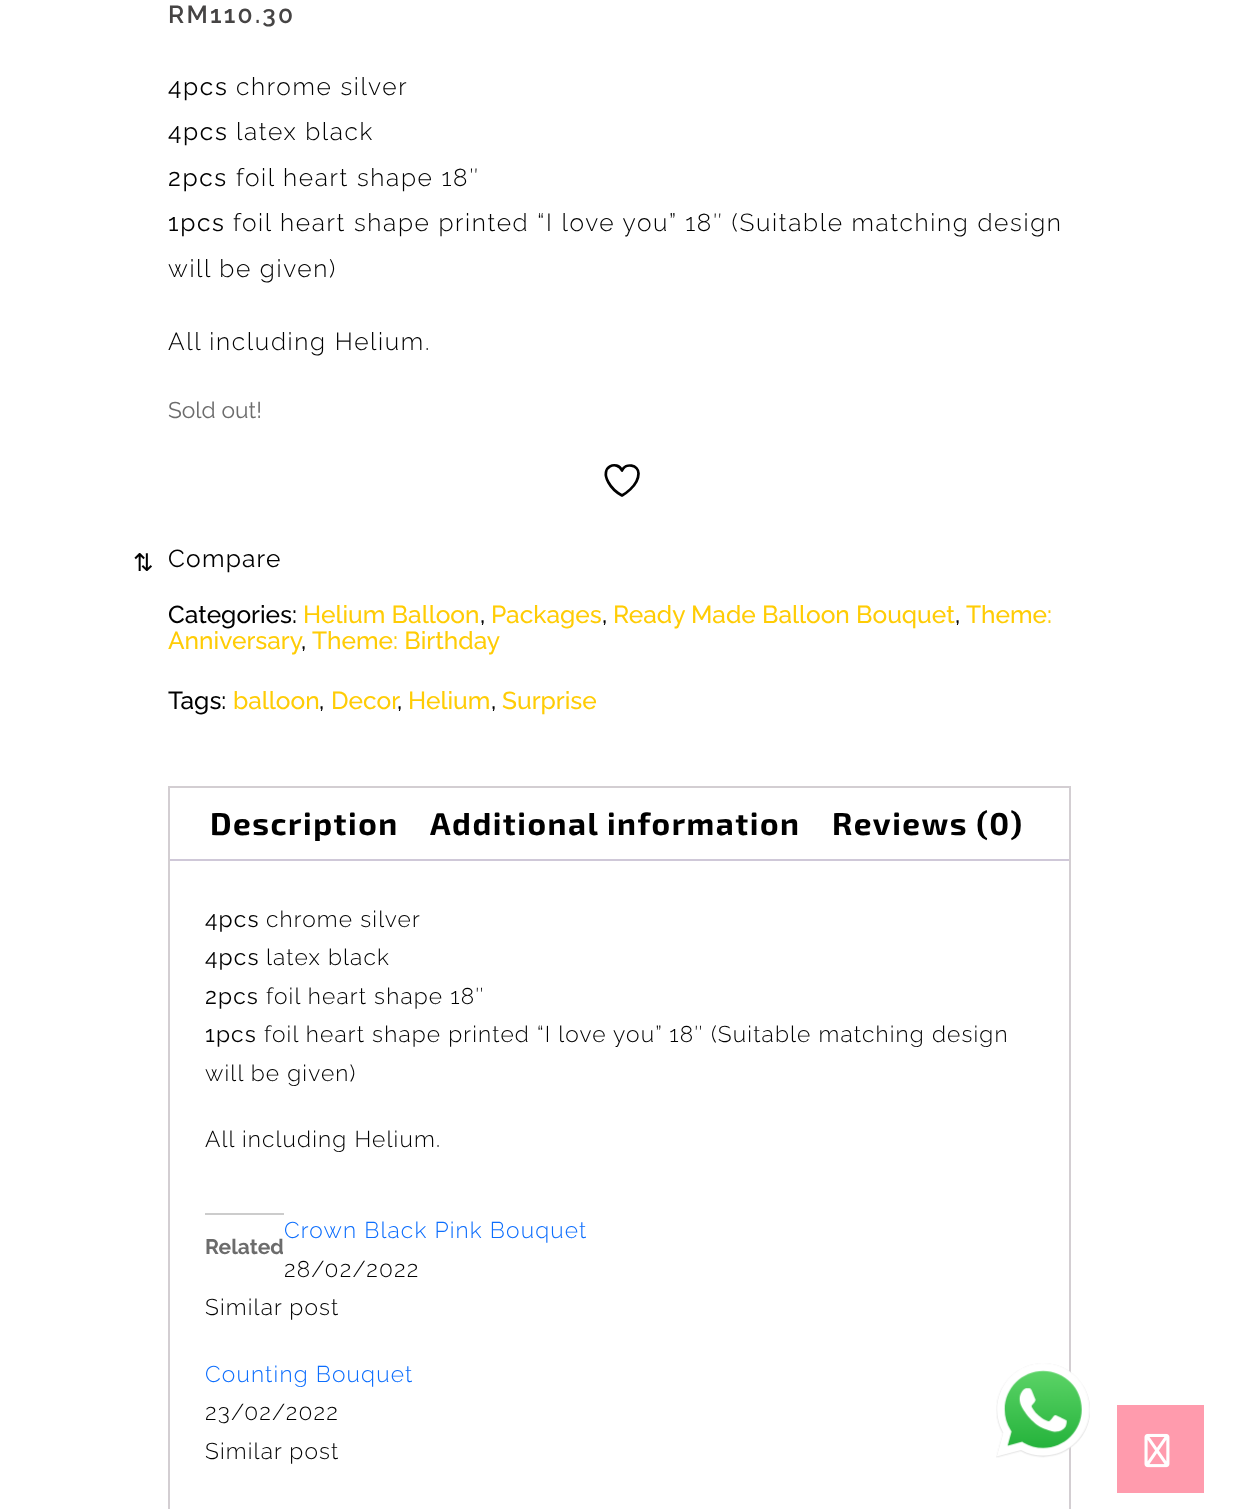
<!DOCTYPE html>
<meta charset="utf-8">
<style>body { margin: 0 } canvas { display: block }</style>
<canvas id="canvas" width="1238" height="1509"></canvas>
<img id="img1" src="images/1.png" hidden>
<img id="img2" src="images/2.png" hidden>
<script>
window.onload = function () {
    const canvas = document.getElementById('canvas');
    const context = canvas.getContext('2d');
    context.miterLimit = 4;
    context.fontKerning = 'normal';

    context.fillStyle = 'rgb(255, 255, 255)';
    context.fillRect(0, 0, 1238, 1509);
    context.beginPath();
    context.moveTo(638.5, 473.5);
    context.bezierCurveTo(638.5, 464.5, 625.5, 462.5, 622, 470.5);
    context.bezierCurveTo(617.5, 460, 599, 466, 608.5, 482.5);
    context.bezierCurveTo(611.5, 488, 616.5, 492.5, 622, 495.5);
    context.bezierCurveTo(622, 495.5, 638.5, 486.5, 638.5, 473.5);
    context.closePath();
    context.strokeStyle = 'rgb(0, 0, 0)';
    context.lineWidth = 2.7;
    context.lineCap = 'round';
    context.lineJoin = 'round';
    context.stroke();
    context.strokeStyle = 'rgb(211, 206, 210)';
    context.lineWidth = 2;
    context.lineJoin = 'miter';
    context.strokeRect(169, 787, 901, 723);
    context.fillStyle = 'rgb(207, 200, 216)';
    context.fillRect(170, 859, 899, 2);
    context.fillStyle = 'rgb(204, 204, 204)';
    context.fillRect(205, 1213, 79, 2);
    context.drawImage(document.getElementById('img1'), 996, 1363, 94, 95);
    context.fillStyle = 'rgb(255, 155, 173)';
    context.fillRect(1117, 1405, 87, 88);
    context.drawImage(document.getElementById('img2'), 1144, 1433, 26, 35);
    context.letterSpacing = '2.25px';
    context.font = '600 24.5px Raleway';
    context.fillStyle = 'rgb(70, 68, 68)';
    context.fillText('RM110.30', 168, 23);
    context.letterSpacing = '1.65px';
    context.font = '24.5px Raleway';
    context.fillStyle = 'rgb(0, 0, 0)';
    context.fillText('4pcs', 168, 95);
    context.font = '300 24.5px Raleway';
    context.fillText('chrome silver', 236, 95);
    context.font = '24.5px Raleway';
    context.fillText('4pcs', 168, 140);
    context.font = '300 24.5px Raleway';
    context.fillText('latex black', 236, 140);
    context.font = '24.5px Raleway';
    context.fillText('2pcs', 168, 186);
    context.font = '300 24.5px Raleway';
    context.fillText('foil heart shape 18″', 236, 186);
    context.font = '24.5px Raleway';
    context.fillText('1pcs', 168, 231);
    context.font = '300 24.5px Raleway';
    context.fillText('foil heart shape printed “I love you” 18″ (Suitable matching design', 233, 231);
    context.fillText('will be given)', 168, 277);
    context.fillText('All including Helium.', 168, 350);
    context.letterSpacing = '0px';
    context.font = '22.75px Raleway';
    context.fillStyle = 'rgb(108, 108, 108)';
    context.fillText('Sold out!', 168, 418);
    context.letterSpacing = '1.25px';
    context.font = '24.5px DejaVu Sans';
    context.fillStyle = 'rgb(0, 0, 0)';
    context.fillText('⇅', 133, 571);
    context.font = '24.5px Raleway';
    context.fillText('Compare', 168, 567);
    context.letterSpacing = '0px';
    context.font = '500 24.5px Raleway';
    context.fillText('Categories:', 168, 623);
    context.fillStyle = 'rgb(255, 204, 5)';
    context.fillText('Helium Balloon', 303, 623);
    context.fillStyle = 'rgb(0, 0, 0)';
    context.fillText(',', 480, 623);
    context.fillStyle = 'rgb(255, 204, 5)';
    context.fillText('Packages', 491, 623);
    context.fillStyle = 'rgb(0, 0, 0)';
    context.fillText(',', 602, 623);
    context.fillStyle = 'rgb(255, 204, 5)';
    context.fillText('Ready Made Balloon Bouquet', 613, 623);
    context.fillStyle = 'rgb(0, 0, 0)';
    context.fillText(',', 955, 623);
    context.fillStyle = 'rgb(255, 204, 5)';
    context.fillText('Theme:', 966, 623);
    context.fillText('Anniversary', 168, 649);
    context.fillStyle = 'rgb(0, 0, 0)';
    context.fillText(',', 301, 649);
    context.fillStyle = 'rgb(255, 204, 5)';
    context.fillText('Theme: Birthday', 312, 649);
    context.fillStyle = 'rgb(0, 0, 0)';
    context.fillText('Tags:', 168, 709);
    context.fillStyle = 'rgb(255, 204, 5)';
    context.fillText('balloon', 233, 709);
    context.fillStyle = 'rgb(0, 0, 0)';
    context.fillText(',', 319, 709);
    context.fillStyle = 'rgb(255, 204, 5)';
    context.fillText('Decor', 331, 709);
    context.fillText('Helium', 408, 709);
    context.fillText('Surprise', 502, 709);
    context.fillStyle = 'rgb(0, 0, 0)';
    context.fillText(',', 397, 709);
    context.fillText(',', 491, 709);
    context.letterSpacing = '1.5px';
    context.font = 'bold 31.5px "Exo 2"';
    context.fillText('Description', 210, 835);
    context.fillText('Additional information', 430, 835);
    context.fillText('Reviews (0)', 832, 835);
    context.letterSpacing = '1.15px';
    context.font = '22.75px Raleway';
    context.fillText('4pcs', 205, 927);
    context.font = '300 22.75px Raleway';
    context.fillText('chrome silver', 266, 927);
    context.font = '22.75px Raleway';
    context.fillText('4pcs', 205, 965);
    context.font = '300 22.75px Raleway';
    context.fillText('latex black', 266, 965);
    context.font = '22.75px Raleway';
    context.fillText('2pcs', 205, 1004);
    context.font = '300 22.75px Raleway';
    context.fillText('foil heart shape 18″', 266, 1004);
    context.font = '22.75px Raleway';
    context.fillText('1pcs', 205, 1042);
    context.font = '300 22.75px Raleway';
    context.fillText('foil heart shape printed “I love you” 18″ (Suitable matching design', 264, 1042);
    context.fillText('will be given)', 205, 1081);
    context.fillText('All including Helium.', 205, 1147);
    context.fillStyle = 'rgb(13, 110, 253)';
    context.fillText('Crown Black Pink Bouquet', 284, 1238);
    context.fillStyle = 'rgb(0, 0, 0)';
    context.fillText('28/02/2022', 284, 1277);
    context.fillText('Similar post', 205, 1315);
    context.fillStyle = 'rgb(13, 110, 253)';
    context.fillText('Counting Bouquet', 205, 1382);
    context.fillStyle = 'rgb(0, 0, 0)';
    context.fillText('23/02/2022', 205, 1420);
    context.fillText('Similar post', 205, 1459);
    context.letterSpacing = '0px';
    context.font = 'bold 21px Raleway';
    context.fillStyle = 'rgb(108, 108, 108)';
    context.fillText('Related', 205, 1254);
};
</script>
